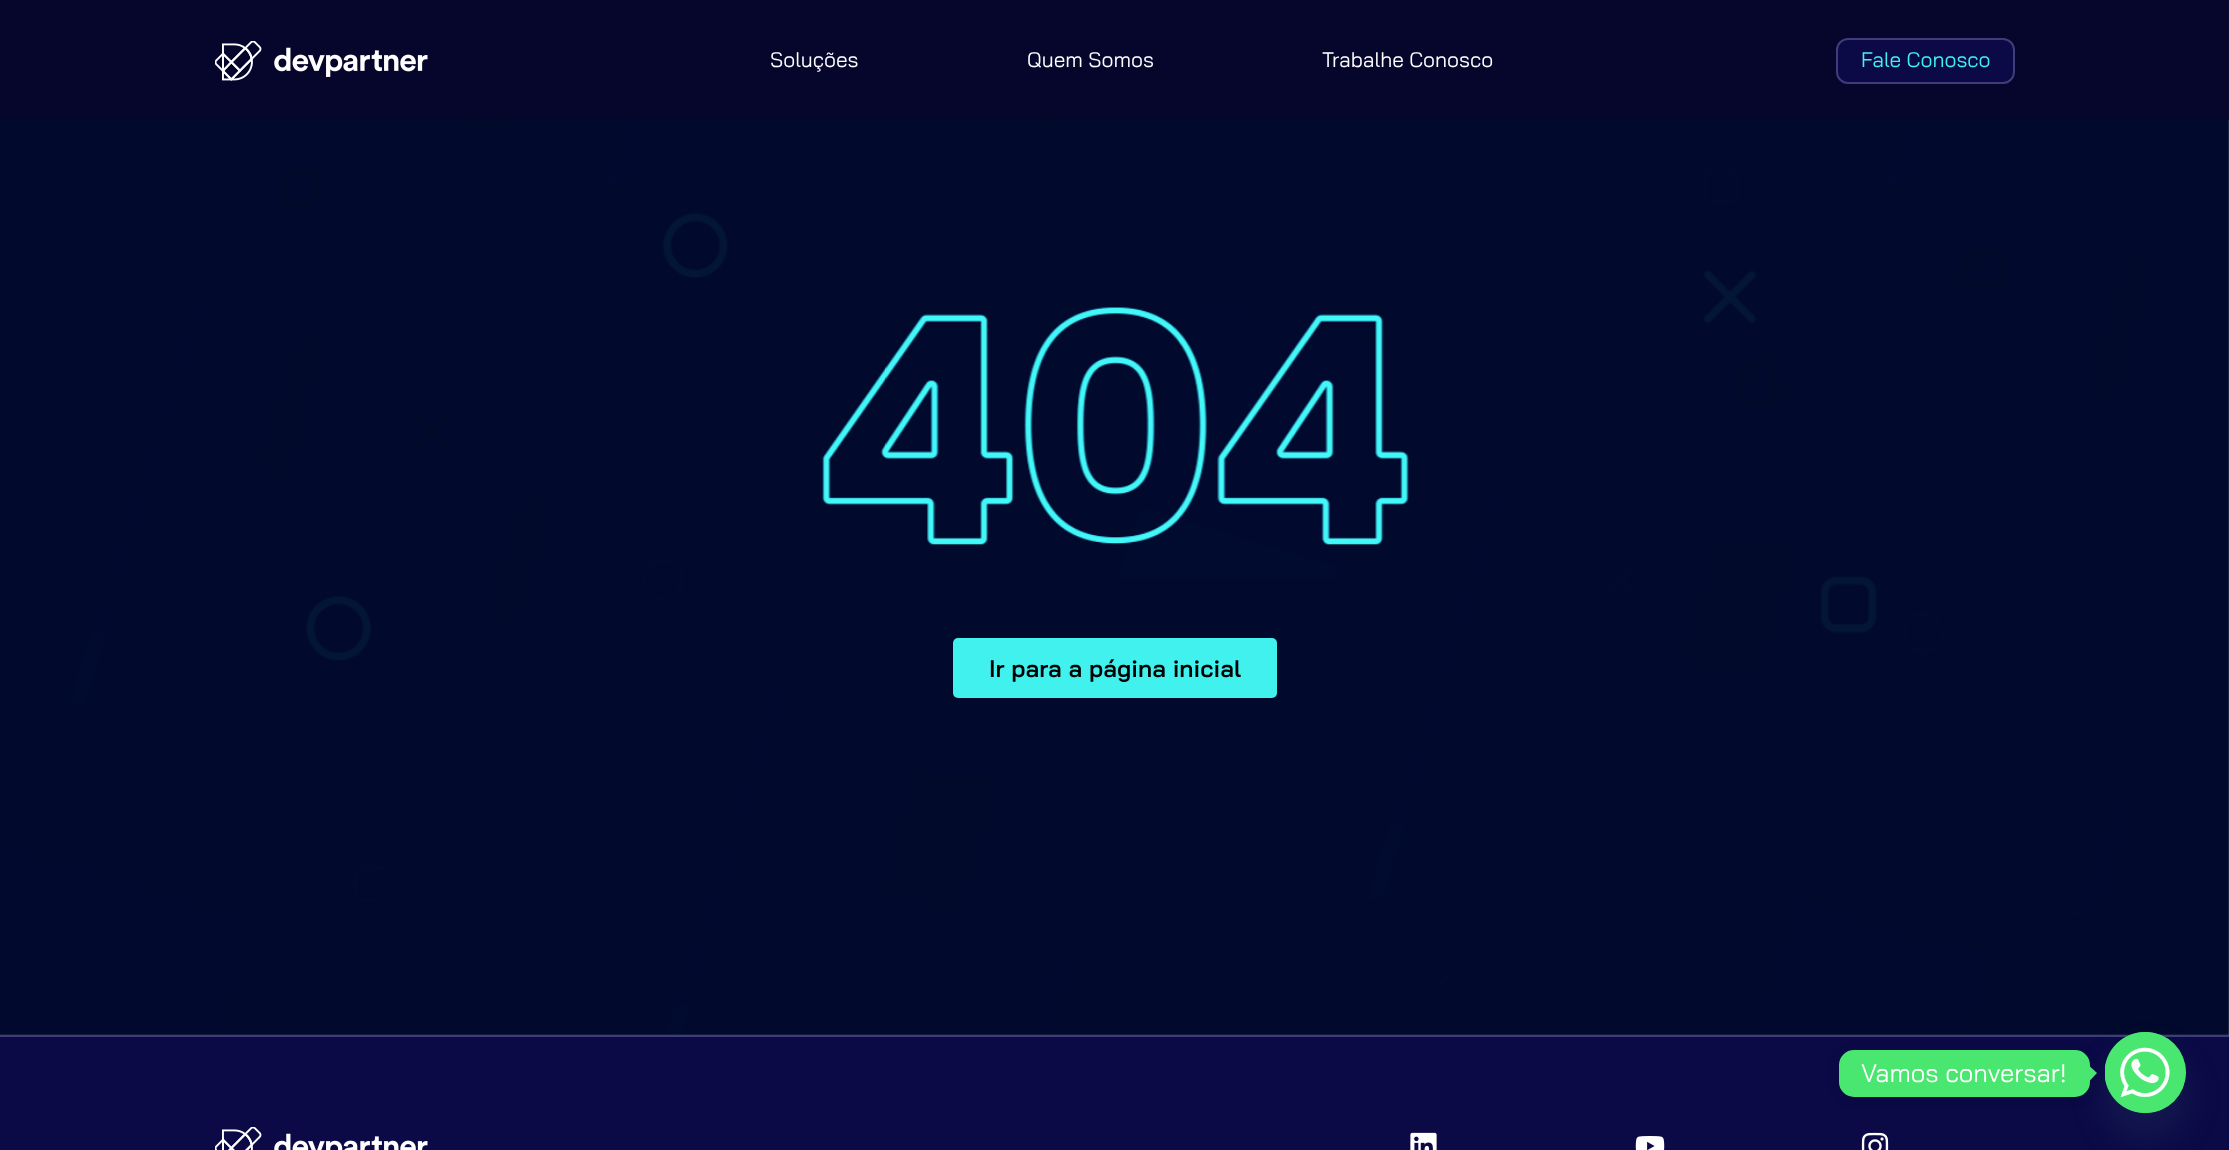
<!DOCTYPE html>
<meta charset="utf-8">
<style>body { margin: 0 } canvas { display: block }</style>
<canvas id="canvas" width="2229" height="1150"></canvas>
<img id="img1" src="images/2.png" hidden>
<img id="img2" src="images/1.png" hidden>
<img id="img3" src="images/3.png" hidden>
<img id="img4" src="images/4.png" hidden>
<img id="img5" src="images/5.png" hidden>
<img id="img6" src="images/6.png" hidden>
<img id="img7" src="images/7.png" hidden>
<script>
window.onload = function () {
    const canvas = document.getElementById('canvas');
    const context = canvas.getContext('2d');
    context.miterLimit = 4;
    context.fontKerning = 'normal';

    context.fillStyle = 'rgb(255, 255, 255)';
    context.fillRect(0, 0, 2229, 1150);
    context.drawImage(document.getElementById('img1'), 0, 0, 2229, 1035);
    context.fillStyle = 'rgba(7, 6, 44, 0.88)';
    context.fillRect(0, 0, 2229, 120);
    context.drawImage(document.getElementById('img2'), 215, 41, 213, 40);
    context.fillStyle = 'rgb(11, 10, 71)';
    context.beginPath();
    context.roundRect(1837, 39, 177, 44, 11);
    context.fill();
    context.strokeStyle = 'rgb(62, 61, 122)';
    context.lineWidth = 2;
    context.stroke();
    context.fillStyle = 'rgb(64, 241, 238)';
    context.beginPath();
    context.roundRect(953, 638, 324, 60, 5);
    context.fill();
    context.fillStyle = 'rgb(11, 10, 71)';
    context.fillRect(0, 1037, 2229, 113);
    context.fillStyle = 'rgb(62, 61, 122)';
    context.fillRect(0, 1035, 2229, 2);
    context.drawImage(document.getElementById('img3'), 215, 1127, 213, 23);
    context.drawImage(document.getElementById('img4'), 1410, 1132, 27, 18);
    context.drawImage(document.getElementById('img5'), 1635, 1136, 30, 14);
    context.drawImage(document.getElementById('img6'), 1861, 1132, 28, 18);
    context.fillStyle = 'rgba(73, 104, 126, 0.16)';
    context.filter = 'blur(18px)';
    context.beginPath();
    context.roundRect(2105, 1056, 81, 81, 40.5);
    context.fill();
    context.filter = 'none';
    context.fillStyle = 'rgb(73, 230, 112)';
    context.beginPath();
    context.arc(2145.5, 1072.5, 40.5, 0, 2 * Math.PI);
    context.fill();
    context.drawImage(document.getElementById('img7'), 2105, 1032, 81, 81);
    context.fillStyle = 'rgba(0, 0, 0, 0.15)';
    context.filter = 'blur(6px)';
    context.beginPath();
    context.roundRect(1839, 1052, 251, 46, 15);
    context.fill();
    context.filter = 'none';
    context.fillStyle = 'rgb(73, 230, 112)';
    context.beginPath();
    context.roundRect(1839, 1050, 251, 47, 15);
    context.fill();
    context.beginPath();
    context.moveTo(2089.5, 1081);
    context.lineTo(2089.5, 1066);
    context.lineTo(2097, 1073);
    context.closePath();
    context.fill();
    context.font = '21px Bai Jamjuree';
    context.fillStyle = 'rgb(255, 255, 255)';
    context.fillText('Soluções', 770, 67);
    context.fillText('Quem Somos', 1027, 67);
    context.fillText('Trabalhe Conosco', 1322, 67);
    context.fillStyle = 'rgb(64, 241, 238)';
    context.fillText('Fale Conosco', 1861, 67);
    context.font = '600 24px Bai Jamjuree';
    context.fillStyle = 'rgb(0, 0, 0)';
    context.fillText('Ir para a página inicial', 989, 677);
    context.font = '25.5px Bai Jamjuree';
    context.fillStyle = 'rgb(255, 255, 255)';
    context.fillText('Vamos conversar!', 1861, 1082);
};
</script>
